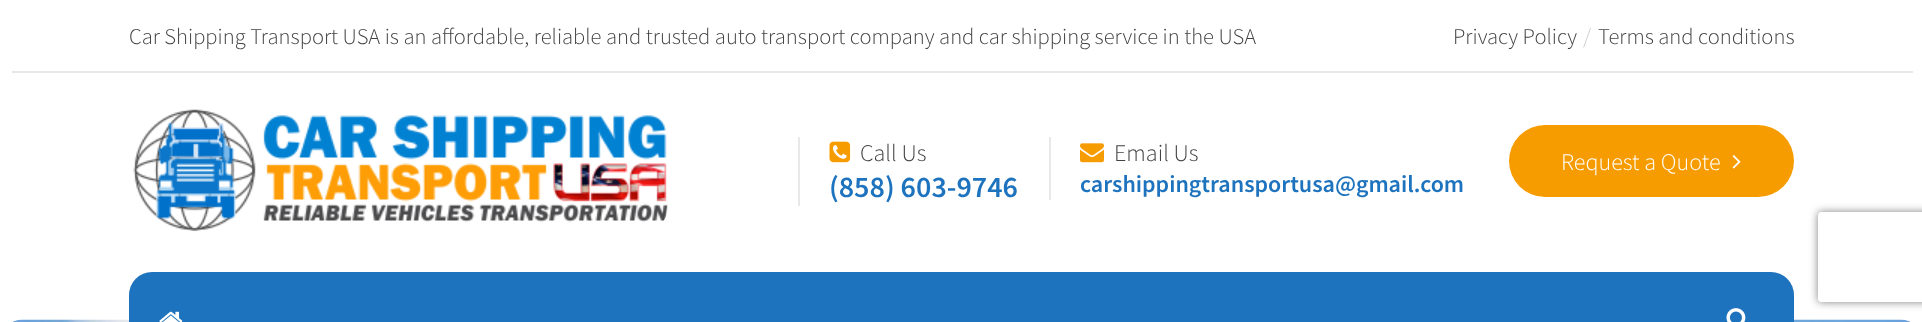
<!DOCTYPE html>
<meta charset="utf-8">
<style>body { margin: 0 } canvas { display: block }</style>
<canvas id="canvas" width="1922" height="322"></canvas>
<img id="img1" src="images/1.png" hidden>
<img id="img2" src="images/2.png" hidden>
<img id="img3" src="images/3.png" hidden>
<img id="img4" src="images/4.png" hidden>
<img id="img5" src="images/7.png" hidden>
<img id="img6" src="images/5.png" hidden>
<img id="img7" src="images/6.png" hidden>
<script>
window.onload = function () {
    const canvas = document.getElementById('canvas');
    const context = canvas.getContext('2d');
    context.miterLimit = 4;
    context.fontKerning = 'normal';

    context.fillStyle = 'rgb(255, 255, 255)';
    context.fillRect(0, 0, 1922, 322);
    context.fillStyle = 'rgb(232, 232, 232)';
    context.fillRect(12, 71, 1901, 2);
    context.drawImage(document.getElementById('img1'), 133, 109, 535, 122);
    context.fillRect(798, 137, 2, 69);
    context.drawImage(document.getElementById('img2'), 829, 141, 22, 22);
    context.fillRect(1049, 137, 2, 63);
    context.drawImage(document.getElementById('img3'), 1080, 143, 24, 20);
    context.fillStyle = 'rgb(247, 156, 0)';
    context.beginPath();
    context.roundRect(1509, 125, 285, 72, 36);
    context.fill();
    context.drawImage(document.getElementById('img4'), 1732, 155, 9, 14);
    context.drawImage(document.getElementById('img5'), 12, 319, 1899, 3);
    context.fillStyle = 'rgb(30, 115, 190)';
    context.beginPath();
    context.roundRect(129, 272, 1665, 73, 23);
    context.fill();
    context.drawImage(document.getElementById('img6'), 159, 311, 24, 11);
    context.drawImage(document.getElementById('img7'), 1726, 308, 20, 14);
    context.save();
    context.beginPath();
    context.moveTo(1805, 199);
    context.lineTo(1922, 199);
    context.lineTo(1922, 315);
    context.lineTo(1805, 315);
    context.closePath();
    context.moveTo(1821, 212);
    context.lineTo(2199, 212);
    context.bezierCurveTo(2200.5, 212, 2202, 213.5, 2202, 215);
    context.lineTo(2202, 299);
    context.bezierCurveTo(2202, 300.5, 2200.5, 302, 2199, 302);
    context.lineTo(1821, 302);
    context.bezierCurveTo(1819.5, 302, 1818, 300.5, 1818, 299);
    context.lineTo(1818, 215);
    context.bezierCurveTo(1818, 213.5, 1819.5, 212, 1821, 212);
    context.closePath();
    context.clip('evenodd');
    context.fillStyle = 'rgb(128, 128, 128)';
    context.filter = 'blur(4px)';
    context.beginPath();
    context.roundRect(1818, 212, 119, 90, 3);
    context.fill();
    context.filter = 'none';
    context.restore();
    context.font = '300 22.5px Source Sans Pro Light';
    context.fillStyle = 'rgb(66, 66, 66)';
    context.fillText('Car Shipping Transport USA is an affordable, reliable and trusted auto transport company and car shipping service in the USA', 129, 44);
    context.fillText('Privacy Policy', 1453, 44);
    context.fillStyle = 'rgb(204, 204, 204)';
    context.fillText('/', 1583, 44);
    context.fillStyle = 'rgb(66, 66, 66)';
    context.fillText('Terms and conditions', 1598, 44);
    context.font = '300 24px Source Sans Pro Light';
    context.fillText('Call Us', 860, 161);
    context.font = '600 30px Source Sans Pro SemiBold';
    context.fillStyle = 'rgb(30, 115, 190)';
    context.fillText('(858) 603-9746', 829, 197);
    context.font = '300 24px Source Sans Pro Light';
    context.fillStyle = 'rgb(66, 66, 66)';
    context.fillText('Email Us', 1114, 161);
    context.font = '600 24px Source Sans Pro SemiBold';
    context.fillStyle = 'rgb(30, 115, 190)';
    context.fillText('carshippingtransportusa@gmail.com', 1080, 192);
    context.font = '300 24px Source Sans Pro Light';
    context.fillStyle = 'rgb(255, 255, 255)';
    context.fillText('Request a Quote', 1561, 170);
};
</script>
